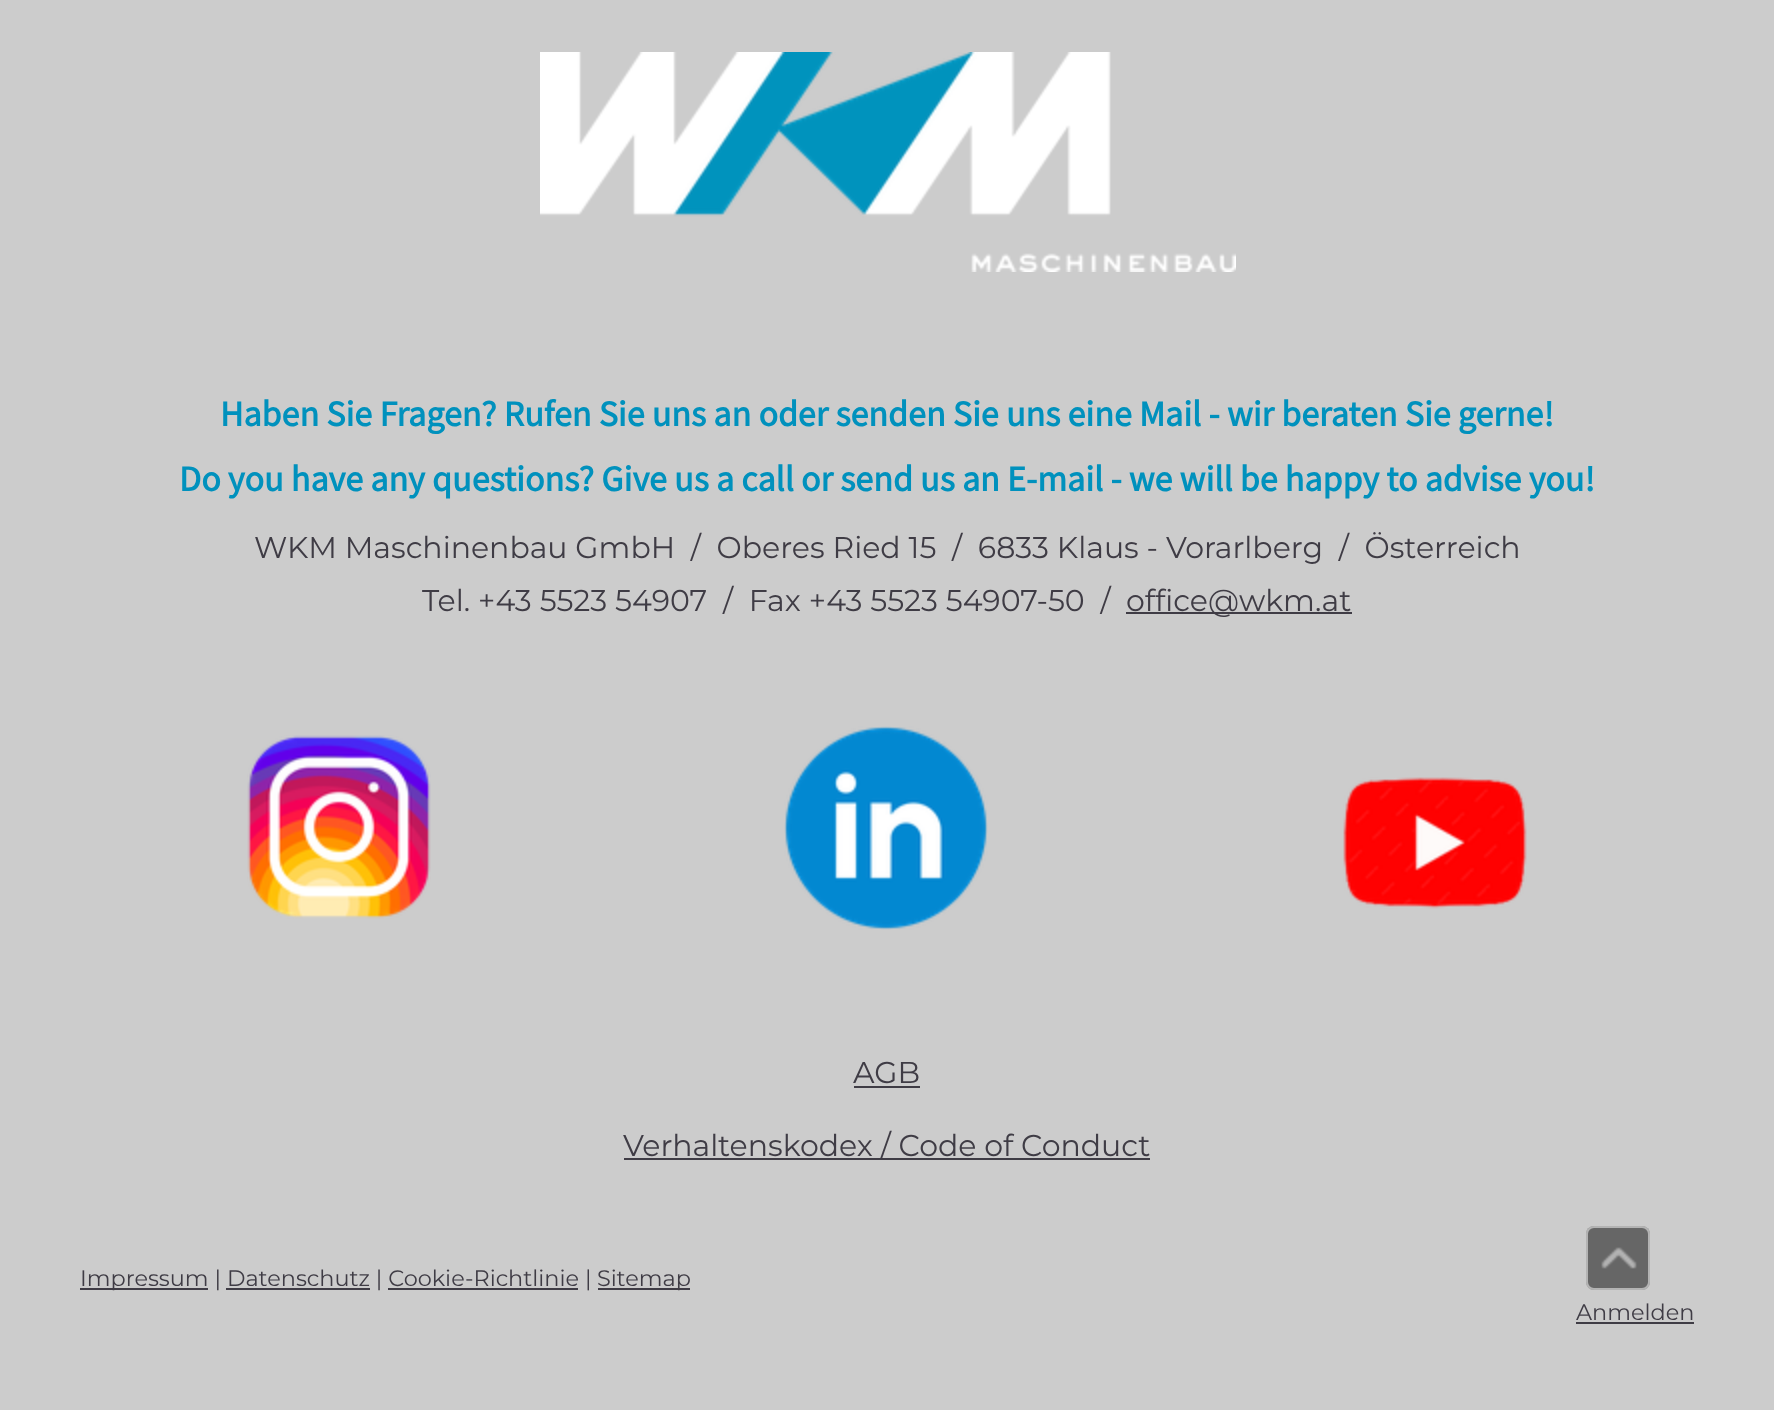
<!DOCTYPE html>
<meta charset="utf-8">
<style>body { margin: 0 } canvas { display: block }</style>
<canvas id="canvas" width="1774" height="1410"></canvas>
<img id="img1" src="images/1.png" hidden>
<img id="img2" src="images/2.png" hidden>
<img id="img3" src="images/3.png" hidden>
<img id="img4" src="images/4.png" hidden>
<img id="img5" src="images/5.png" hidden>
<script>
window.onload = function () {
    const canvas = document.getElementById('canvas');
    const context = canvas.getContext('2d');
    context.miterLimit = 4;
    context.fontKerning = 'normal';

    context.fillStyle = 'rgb(204, 204, 204)';
    context.fillRect(0, 0, 1774, 1410);
    context.drawImage(document.getElementById('img1'), 540, 52, 696, 220);
    context.fillStyle = 'rgb(63, 60, 69)';
    context.fillRect(1126, 612, 226, 2);
    context.drawImage(document.getElementById('img2'), 247, 735, 184, 184);
    context.drawImage(document.getElementById('img3'), 784, 726, 204, 204);
    context.drawImage(document.getElementById('img4'), 1343, 777, 184, 132);
    context.fillRect(854, 1086, 66, 2);
    context.fillRect(624, 1158, 526, 2);
    context.fillRect(80, 1288, 128, 2);
    context.fillRect(598, 1288, 92, 2);
    context.fillRect(226, 1288, 144, 2);
    context.fillRect(388, 1288, 190, 2);
    context.fillRect(1576, 1322, 118, 2);
    context.fillStyle = 'rgb(102, 102, 102)';
    context.beginPath();
    context.roundRect(1586, 1226, 64, 64, 8);
    context.fill();
    context.beginPath();
    context.roundRect(1587, 1227, 62, 62, 7);
    context.strokeStyle = 'rgba(255, 255, 255, 0.5)';
    context.lineWidth = 2;
    context.stroke();
    context.drawImage(document.getElementById('img5'), 1601, 1247, 36, 22);
    context.font = 'bold 36px Source Sans Pro';
    context.fillStyle = 'rgb(0, 145, 189)';
    context.fillText('Haben Sie Fragen? Rufen Sie uns an oder senden Sie uns eine Mail - wir beraten Sie gerne!', 220, 426);
    context.fillText('Do you have any questions? Give us a call or send us an E-mail - we will be happy to advise you!', 179, 491);
    context.font = '100 30px Montserrat';
    context.fillStyle = 'rgb(63, 60, 69)';
    context.fillText('WKM Maschinenbau GmbH  /  Oberes Ried 15  /  6833 Klaus - Vorarlberg  /  Österreich', 254, 558);
    context.fillText('Tel. +43 5523 54907  /  Fax +43 5523 54907-50  /', 422, 611);
    context.fillText('office@wkm.at', 1126, 611);
    context.fillText('AGB', 853, 1083);
    context.fillText('Verhaltenskodex / Code of Conduct', 623, 1156);
    context.font = '100 22.4px Montserrat';
    context.fillText('Impressum | Datenschutz | Cookie-Richtlinie |', 80, 1286);
    context.fillText('Sitemap', 597, 1286);
    context.fillText('Anmelden', 1576, 1320);
};
</script>
